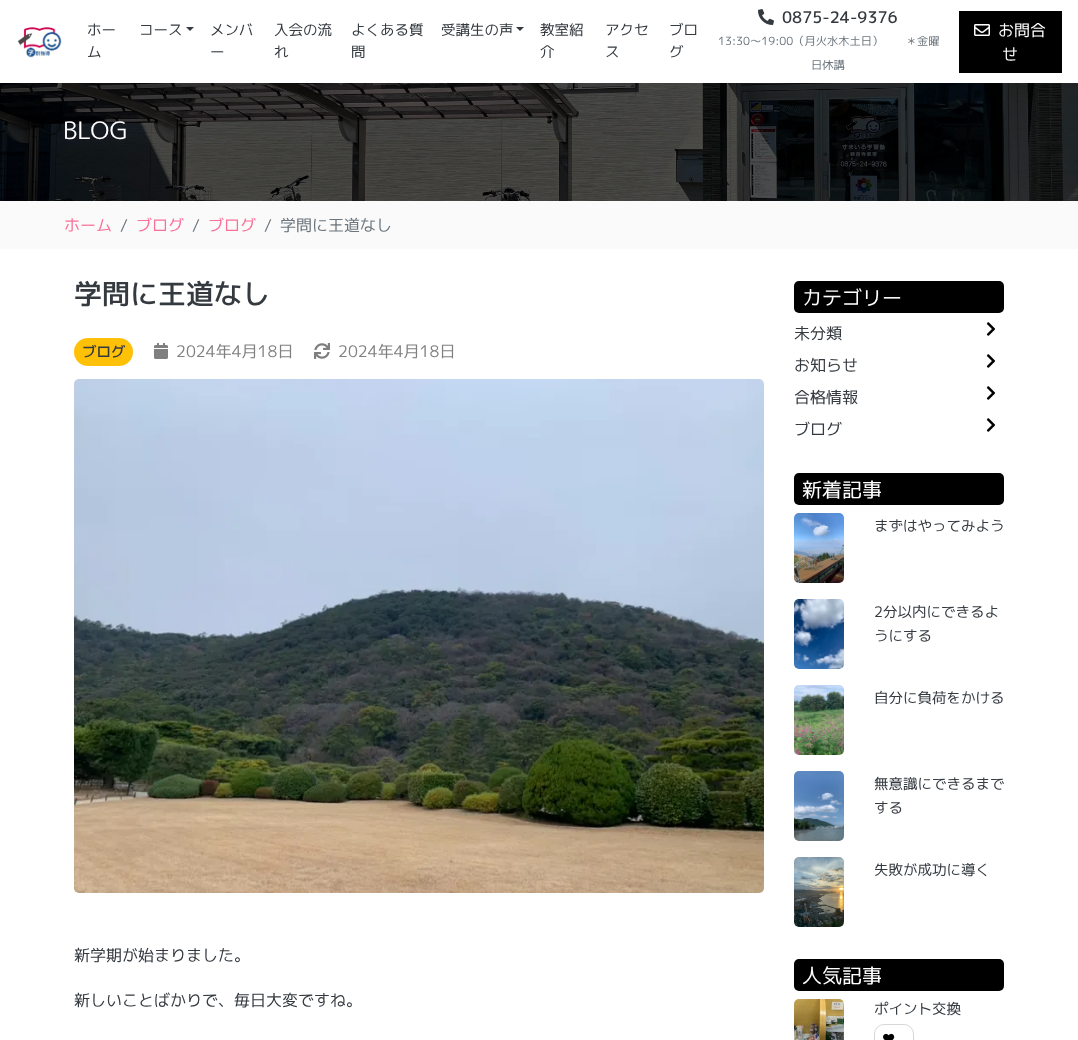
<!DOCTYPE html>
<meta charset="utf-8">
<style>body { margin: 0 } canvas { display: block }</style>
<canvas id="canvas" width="1078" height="1040"></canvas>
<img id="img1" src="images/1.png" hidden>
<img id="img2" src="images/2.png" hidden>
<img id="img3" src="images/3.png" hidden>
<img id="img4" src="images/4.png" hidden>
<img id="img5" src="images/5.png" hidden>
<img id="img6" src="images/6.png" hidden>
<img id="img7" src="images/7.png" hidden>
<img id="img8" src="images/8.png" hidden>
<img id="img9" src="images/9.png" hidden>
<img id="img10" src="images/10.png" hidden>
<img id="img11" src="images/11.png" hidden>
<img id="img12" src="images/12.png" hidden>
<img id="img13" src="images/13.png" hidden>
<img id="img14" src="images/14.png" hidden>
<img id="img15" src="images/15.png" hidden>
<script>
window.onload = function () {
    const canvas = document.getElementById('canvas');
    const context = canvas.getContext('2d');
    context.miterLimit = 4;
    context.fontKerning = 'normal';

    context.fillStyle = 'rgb(255, 255, 255)';
    context.fillRect(0, 0, 1078, 1040);
    context.drawImage(document.getElementById('img1'), 17, 27, 45, 31);
    context.fillStyle = 'rgb(52, 58, 64)';
    context.beginPath();
    context.moveTo(186, 27);
    context.lineTo(194, 27);
    context.lineTo(190, 31);
    context.closePath();
    context.fill();
    context.beginPath();
    context.moveTo(516, 27);
    context.lineTo(524, 27);
    context.lineTo(520, 31);
    context.closePath();
    context.fill();
    context.drawImage(document.getElementById('img2'), 758, 9, 16, 16);
    context.fillStyle = 'rgb(0, 0, 0)';
    context.fillRect(959, 11, 103, 62);
    context.drawImage(document.getElementById('img3'), 974, 24, 16, 12);
    context.drawImage(document.getElementById('img4'), 0, 83, 1078, 118);
    context.fillStyle = 'rgb(250, 250, 250)';
    context.fillRect(0, 201, 1078, 48);
    context.fillStyle = 'rgb(255, 193, 7)';
    context.beginPath();
    context.roundRect(74, 338, 59, 28, 14);
    context.fill();
    context.drawImage(document.getElementById('img5'), 154, 343, 14, 16);
    context.drawImage(document.getElementById('img6'), 314, 343, 16, 16);
    context.drawImage(document.getElementById('img7'), 74, 379, 690, 514);
    context.fillStyle = 'rgb(0, 0, 0)';
    context.beginPath();
    context.roundRect(794, 281, 210, 32, 5);
    context.fill();
    context.drawImage(document.getElementById('img8'), 986, 322, 10, 14);
    context.drawImage(document.getElementById('img8'), 986, 354, 10, 14);
    context.drawImage(document.getElementById('img8'), 986, 386, 10, 14);
    context.drawImage(document.getElementById('img8'), 986, 418, 10, 14);
    context.beginPath();
    context.roundRect(794, 473, 210, 32, 5);
    context.fill();
    context.drawImage(document.getElementById('img9'), 794, 513, 50, 70);
    context.drawImage(document.getElementById('img10'), 794, 599, 50, 70);
    context.drawImage(document.getElementById('img11'), 794, 685, 50, 70);
    context.drawImage(document.getElementById('img12'), 794, 771, 50, 70);
    context.drawImage(document.getElementById('img13'), 794, 857, 50, 70);
    context.beginPath();
    context.roundRect(794, 959, 210, 32, 5);
    context.fill();
    context.drawImage(document.getElementById('img14'), 794, 999, 50, 41);
    context.beginPath();
    context.roundRect(874.5, 1024.5, 39, 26, 9.5);
    context.strokeStyle = 'rgb(215, 215, 215)';
    context.stroke();
    context.drawImage(document.getElementById('img15'), 883, 1033, 12, 7);
    context.font = '14.5px "M PLUS 1p"';
    context.fillStyle = 'rgb(52, 58, 64)';
    context.fillText('ホー', 87, 35);
    context.fillText('ム', 87, 57);
    context.fillText('コース', 139, 35);
    context.fillText('メンバ', 210, 35);
    context.fillText('ー', 210, 57);
    context.fillText('入会の流', 274, 35);
    context.fillText('れ', 274, 57);
    context.fillText('よくある質', 351, 35);
    context.fillText('問', 351, 57);
    context.fillText('受講生の声', 441, 35);
    context.fillText('教室紹', 540, 35);
    context.fillText('介', 540, 57);
    context.fillText('アクセ', 605, 35);
    context.fillText('ス', 605, 57);
    context.fillText('ブロ', 669, 35);
    context.fillText('グ', 669, 57);
    context.font = '500 16px "M PLUS 1p"';
    context.fillText('0875-24-9376', 782, 23);
    context.font = '11.25px "M PLUS 1p"';
    context.fillStyle = 'rgb(108, 117, 125)';
    context.fillText('13:30～19:00（月火水木土日）　　＊金曜', 718, 45);
    context.fillText('日休講', 811, 69);
    context.font = '16px "M PLUS 1p"';
    context.fillStyle = 'rgb(255, 255, 255)';
    context.fillText('お問合', 998, 36);
    context.fillText('せ', 1002, 60);
    context.font = '24px "M PLUS 1p"';
    context.fillText('BLOG', 63, 139);
    context.font = '16px "M PLUS 1p"';
    context.fillStyle = 'rgb(250, 112, 154)';
    context.fillText('ホーム', 64, 231);
    context.fillStyle = 'rgb(108, 117, 125)';
    context.fillText('/', 120, 231);
    context.fillStyle = 'rgb(250, 112, 154)';
    context.fillText('ブログ', 136, 231);
    context.fillStyle = 'rgb(108, 117, 125)';
    context.fillText('/', 192, 231);
    context.fillStyle = 'rgb(250, 112, 154)';
    context.fillText('ブログ', 208, 231);
    context.fillStyle = 'rgb(108, 117, 125)';
    context.fillText('/', 264, 231);
    context.fillText('学問に王道なし', 280, 231);
    context.font = '500 28px "M PLUS 1p"';
    context.fillStyle = 'rgb(52, 58, 64)';
    context.fillText('学問に王道なし', 74, 304);
    context.font = '500 14.5px "M PLUS 1p"';
    context.fillText('ブログ', 82, 357);
    context.font = '16px "M PLUS 1p"';
    context.fillStyle = 'rgb(128, 128, 128)';
    context.fillText('2024年4月18日', 176, 357);
    context.fillText('2024年4月18日', 338, 357);
    context.fillStyle = 'rgb(52, 58, 64)';
    context.fillText('新学期が始まりました。', 74, 961);
    context.fillText('新しいことばかりで、毎日大変ですね。', 74, 1006);
    context.font = '20px "M PLUS 1p"';
    context.fillStyle = 'rgb(255, 255, 255)';
    context.fillText('カテゴリー', 802, 305);
    context.font = '16px "M PLUS 1p"';
    context.fillStyle = 'rgb(52, 58, 64)';
    context.fillText('未分類', 794, 339);
    context.fillText('お知らせ', 794, 371);
    context.fillText('合格情報', 794, 403);
    context.fillText('ブログ', 794, 435);
    context.font = '20px "M PLUS 1p"';
    context.fillStyle = 'rgb(255, 255, 255)';
    context.fillText('新着記事', 802, 497);
    context.font = '14.5px "M PLUS 1p"';
    context.fillStyle = 'rgb(52, 58, 64)';
    context.fillText('まずはやってみよう', 874, 531);
    context.fillText('2分以内にできるよ', 874, 617);
    context.fillText('うにする', 874, 641);
    context.fillText('自分に負荷をかける', 874, 703);
    context.fillText('無意識にできるまで', 874, 789);
    context.fillText('する', 874, 813);
    context.fillText('失敗が成功に導く', 874, 875);
    context.font = '20px "M PLUS 1p"';
    context.fillStyle = 'rgb(255, 255, 255)';
    context.fillText('人気記事', 802, 983);
    context.font = '14.5px "M PLUS 1p"';
    context.fillStyle = 'rgb(52, 58, 64)';
    context.fillText('ポイント交換', 874, 1014);
};
</script>
